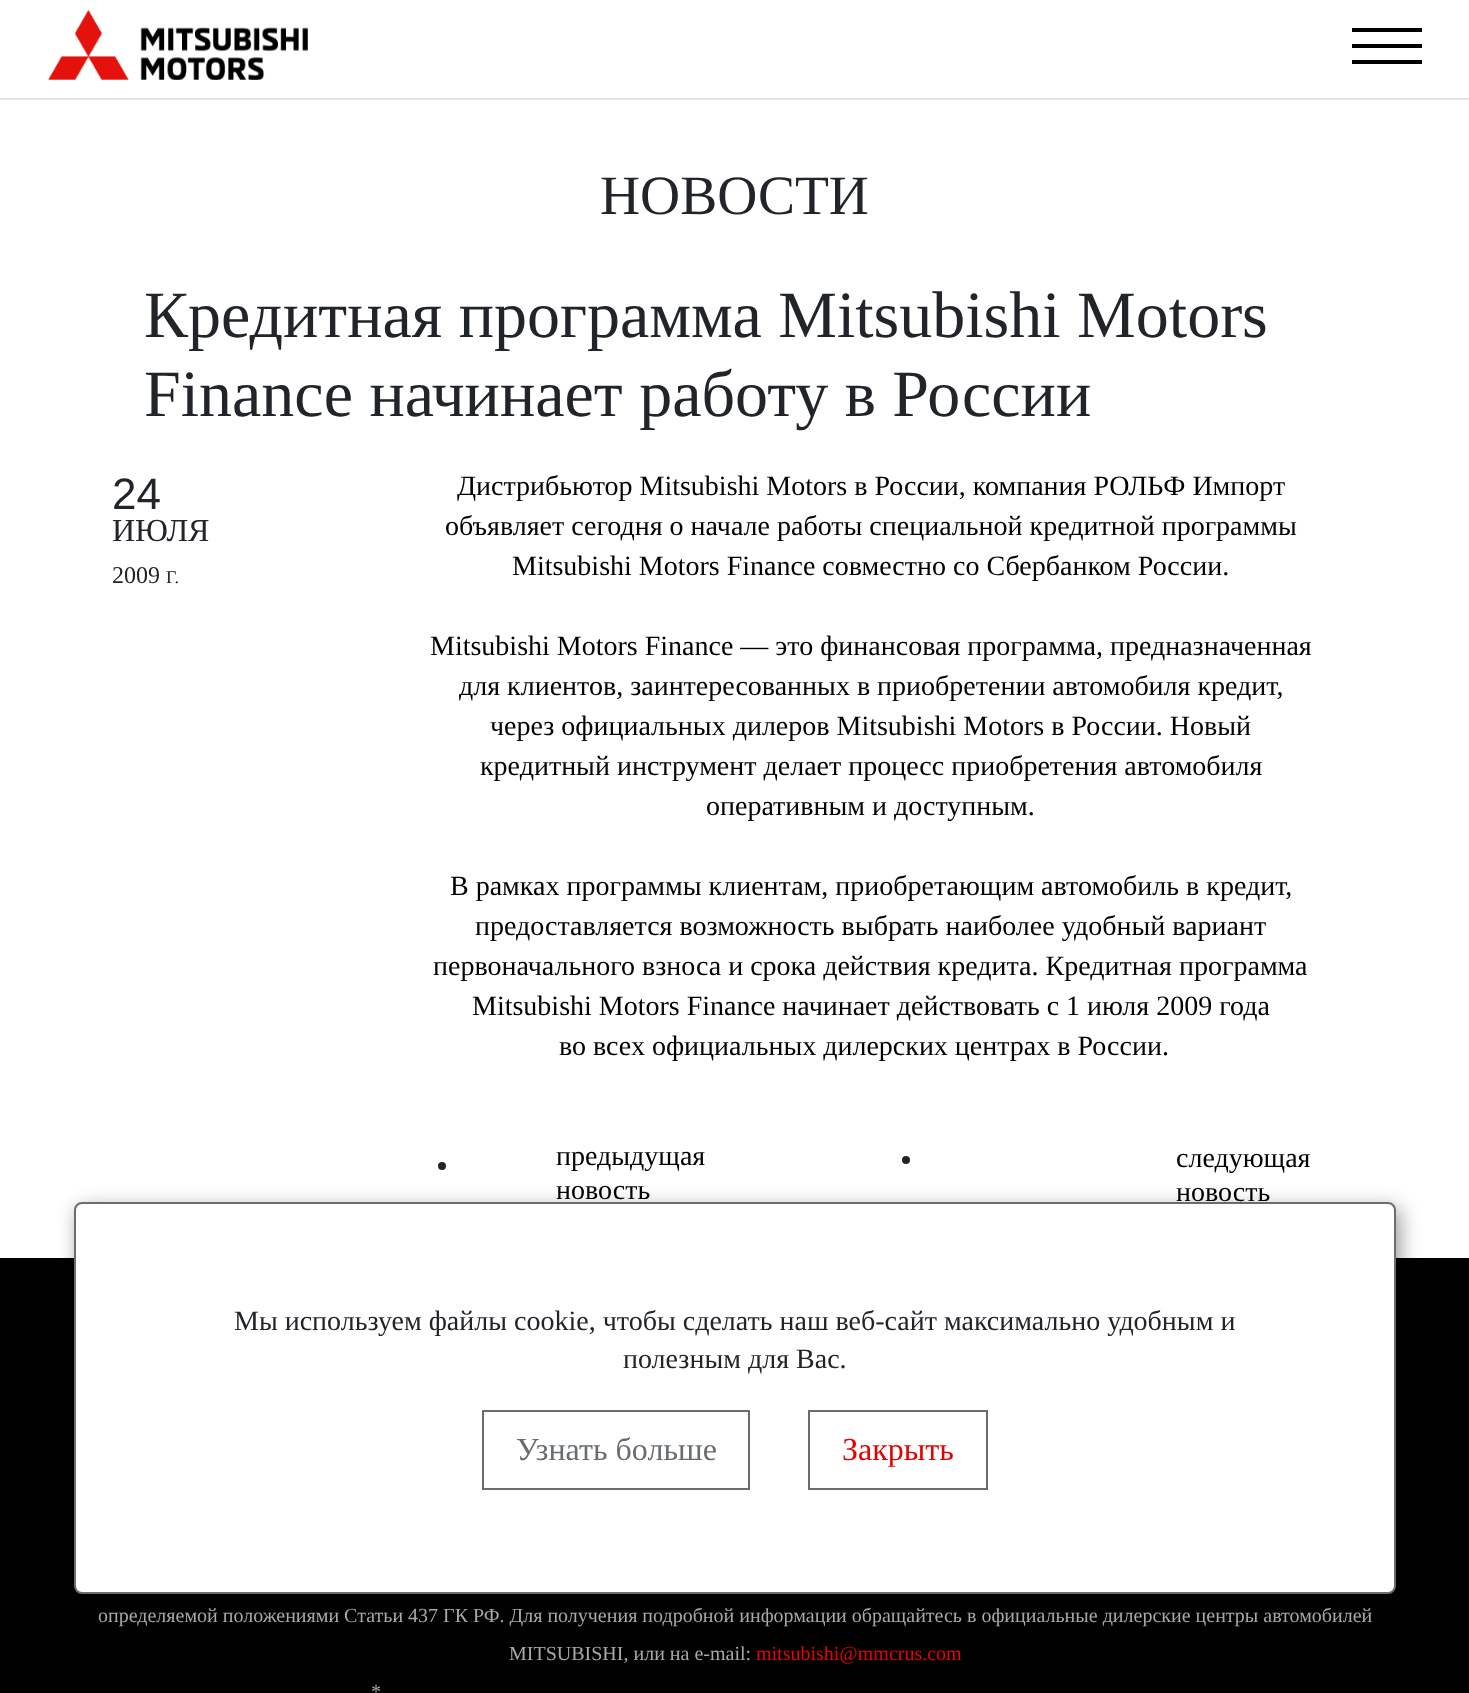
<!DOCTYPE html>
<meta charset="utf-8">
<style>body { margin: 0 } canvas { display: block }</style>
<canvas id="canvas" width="1469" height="1693"></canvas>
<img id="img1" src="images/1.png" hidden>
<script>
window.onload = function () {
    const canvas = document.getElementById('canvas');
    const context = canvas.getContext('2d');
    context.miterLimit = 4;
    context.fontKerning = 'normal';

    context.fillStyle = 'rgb(255, 255, 255)';
    context.fillRect(0, 0, 1469, 1693);
    context.fillStyle = 'rgb(227, 229, 230)';
    context.fillRect(0, 98, 1469, 2);
    context.drawImage(document.getElementById('img1'), 48, 9, 260, 71);
    context.fillStyle = 'rgb(0, 0, 0)';
    context.fillRect(1352, 28, 70, 4);
    context.fillRect(1352, 44, 70, 4);
    context.fillRect(1352, 60, 70, 4);
    context.fillStyle = 'rgb(33, 37, 41)';
    context.beginPath();
    context.arc(442, 1166, 4, 0, 2 * Math.PI);
    context.fill();
    context.beginPath();
    context.arc(906, 1160, 4, 0, 2 * Math.PI);
    context.fill();
    context.fillStyle = 'rgb(0, 0, 0)';
    context.fillRect(0, 1258, 1469, 435);
    context.fillStyle = 'rgba(0, 0, 0, 0.4)';
    context.filter = 'blur(10px)';
    context.beginPath();
    context.roundRect(78, 1208, 1322, 392, 8);
    context.fill();
    context.filter = 'none';
    context.fillStyle = 'rgb(255, 255, 255)';
    context.beginPath();
    context.roundRect(75, 1203, 1320, 390, 7);
    context.fill();
    context.strokeStyle = 'rgb(104, 109, 113)';
    context.lineWidth = 2;
    context.stroke();
    context.strokeRect(483, 1411, 266, 78);
    context.strokeRect(809, 1411, 178, 78);
    context.font = '55.5px Liberation Serif';
    context.fillStyle = 'rgb(33, 37, 41)';
    context.fillText('НОВОСТИ', 600, 214);
    context.font = '66px Liberation Serif';
    context.fillText('Кредитная программа Mitsubishi Motors', 144, 337);
    context.fillText('Finance начинает работу в России', 144, 416);
    context.font = '44px Liberation Sans';
    context.fillText('24', 112, 509);
    context.font = '32px Liberation Serif';
    context.fillText('ИЮЛЯ', 112, 541);
    context.font = '24px Liberation Serif';
    context.fillText('2009', 112, 583);
    context.font = '18px Liberation Serif';
    context.fillText('Г.', 166, 583);
    context.font = '28px Liberation Serif';
    context.fillStyle = 'rgb(0, 0, 0)';
    context.fillText('Дистрибьютор Mitsubishi Motors в России, компания РОЛЬФ Импорт', 457, 495);
    context.fillText('объявляет сегодня о начале работы специальной кредитной программы', 445, 535);
    context.fillText('Mitsubishi Motors Finance совместно со Сбербанком России.', 512, 575);
    context.fillText('Mitsubishi Motors Finance — это финансовая программа, предназначенная', 430, 655);
    context.fillText('для клиентов, заинтересованных в приобретении автомобиля кредит,', 459, 695);
    context.fillText('через официальных дилеров Mitsubishi Motors в России. Новый', 490, 735);
    context.fillText('кредитный инструмент делает процесс приобретения автомобиля', 480, 775);
    context.fillText('оперативным и доступным.', 706, 815);
    context.fillText('В рамках программы клиентам, приобретающим автомобиль в кредит,', 450, 895);
    context.fillText('предоставляется возможность выбрать наиболее удобный вариант', 475, 935);
    context.fillText('первоначального взноса и срока действия кредита. Кредитная программа', 433, 975);
    context.fillText('Mitsubishi Motors Finance начинает действовать с 1 июля 2009 года', 472, 1015);
    context.fillText('во всех официальных дилерских центрах в России.', 559, 1055);
    context.fillText('предыдущая', 556, 1165);
    context.fillText('новость', 556, 1199);
    context.fillText('следующая', 1176, 1167);
    context.fillText('новость', 1176, 1201);
    context.fillStyle = 'rgb(33, 37, 41)';
    context.fillText('Мы используем файлы cookie, чтобы сделать наш веб-сайт максимально удобным и', 234, 1330);
    context.fillText('полезным для Вас.', 623, 1368);
    context.font = '32px Liberation Serif';
    context.fillStyle = 'rgb(104, 109, 113)';
    context.fillText('Узнать больше', 516, 1460);
    context.fillStyle = 'rgb(227, 0, 0)';
    context.fillText('Закрыть', 842, 1460);
    context.font = '20px Liberation Serif';
    context.fillStyle = 'rgb(168, 168, 168)';
    context.fillText('определяемой положениями Статьи 437 ГК РФ. Для получения подробной информации обращайтесь в официальные дилерские центры автомобилей', 98, 1622);
    context.fillText('MITSUBISHI, или на e-mail:', 509, 1660);
    context.fillStyle = 'rgb(237, 0, 0)';
    context.fillText('mitsubishi@mmcrus.com', 756, 1660);
    context.fillStyle = 'rgb(168, 168, 168)';
    context.fillText('*', 371, 1698);
};
</script>
